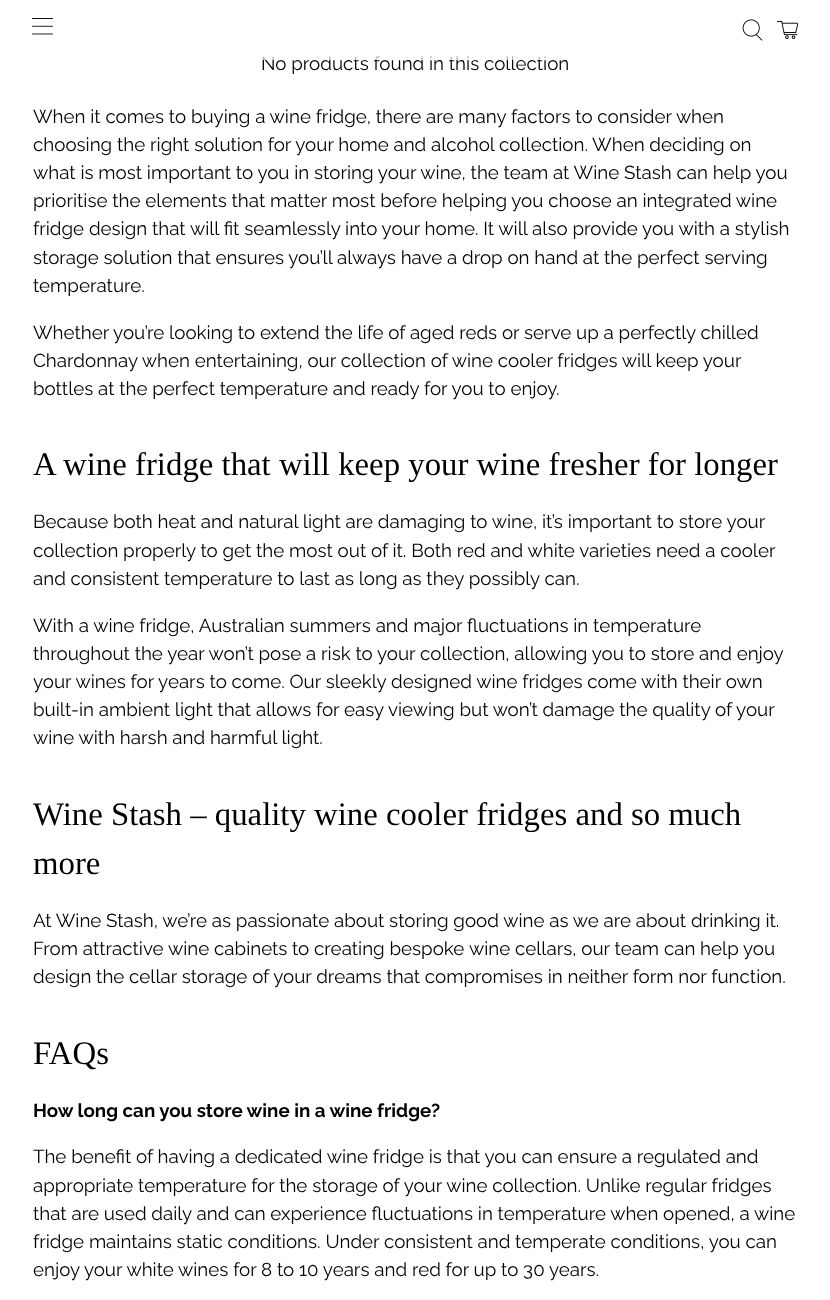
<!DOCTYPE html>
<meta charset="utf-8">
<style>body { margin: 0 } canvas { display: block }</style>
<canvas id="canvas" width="830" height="1300"></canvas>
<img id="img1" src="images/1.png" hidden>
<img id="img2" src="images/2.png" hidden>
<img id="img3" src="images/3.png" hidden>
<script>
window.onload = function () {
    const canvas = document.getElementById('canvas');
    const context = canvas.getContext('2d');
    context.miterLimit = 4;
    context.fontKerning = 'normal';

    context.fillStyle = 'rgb(255, 255, 255)';
    context.fillRect(0, 0, 830, 1300);
    context.drawImage(document.getElementById('img1'), 32, 18, 21, 17);
    context.drawImage(document.getElementById('img2'), 742, 19, 21, 22);
    context.drawImage(document.getElementById('img3'), 777, 21, 22, 18);
    context.font = '18.75px Raleway';
    context.fillStyle = 'rgb(0, 0, 0)';
    context.fillText('No products found in this collection', 261, 70);
    context.fillStyle = 'rgba(255, 255, 255, 0.7)';
    context.fillRect(262, 56, 284, 4);
    context.fillStyle = 'rgb(0, 0, 0)';
    context.fillText('When it comes to buying a wine fridge, there are many factors to consider when', 33, 123);
    context.fillText('choosing the right solution for your home and alcohol collection. When deciding on', 33, 151);
    context.fillText('what is most important to you in storing your wine, the team at Wine Stash can help you', 33, 179);
    context.fillText('prioritise the elements that matter most before helping you choose an integrated wine', 33, 207);
    context.fillText('fridge design that will fit seamlessly into your home. It will also provide you with a stylish', 33, 235);
    context.fillText('storage solution that ensures you’ll always have a drop on hand at the perfect serving', 33, 264);
    context.fillText('temperature.', 33, 292);
    context.fillText('Whether you’re looking to extend the life of aged reds or serve up a perfectly chilled', 33, 339);
    context.fillText('Chardonnay when entertaining, our collection of wine cooler fridges will keep your', 33, 367);
    context.fillText('bottles at the perfect temperature and ready for you to enjoy.', 33, 395);
    context.font = '32.8px Liberation Serif';
    context.fillText('A wine fridge that will keep your wine fresher for longer', 33, 475);
    context.font = '18.75px Raleway';
    context.fillText('Because both heat and natural light are damaging to wine, it’s important to store your', 33, 528);
    context.fillText('collection properly to get the most out of it. Both red and white varieties need a cooler', 33, 557);
    context.fillText('and consistent temperature to last as long as they possibly can.', 33, 585);
    context.fillText('With a wine fridge, Australian summers and major fluctuations in temperature', 33, 632);
    context.fillText('throughout the year won’t pose a risk to your collection, allowing you to store and enjoy', 33, 660);
    context.fillText('your wines for years to come. Our sleekly designed wine fridges come with their own', 33, 688);
    context.fillText('built-in ambient light that allows for easy viewing but won’t damage the quality of your', 33, 716);
    context.fillText('wine with harsh and harmful light.', 33, 744);
    context.font = '32.8px Liberation Serif';
    context.fillText('Wine Stash – quality wine cooler fridges and so much', 33, 825);
    context.fillText('more', 33, 874);
    context.font = '18.75px Raleway';
    context.fillText('At Wine Stash, we’re as passionate about storing good wine as we are about drinking it.', 33, 927);
    context.fillText('From attractive', 33, 955);
    context.fillText('wine cabinets', 168, 955);
    context.fillText('to creating bespoke', 292, 955);
    context.fillText('wine cellars, our team can help you', 469, 955);
    context.fillText('design the cellar storage of your dreams that compromises in neither form nor function.', 33, 983);
    context.font = '32.8px Liberation Serif';
    context.fillText('FAQs', 33, 1064);
    context.font = 'bold 18.75px Raleway';
    context.fillText('How long can you store wine in a wine fridge?', 33, 1117);
    context.font = '18.75px Raleway';
    context.fillText('The benefit of having a dedicated wine fridge is that you can ensure a regulated and', 33, 1163);
    context.fillText('appropriate temperature for the storage of your wine collection. Unlike regular fridges', 33, 1192);
    context.fillText('that are used daily and can experience fluctuations in temperature when opened, a wine', 33, 1220);
    context.fillText('fridge maintains static conditions. Under consistent and temperate conditions, you can', 33, 1248);
    context.fillText('enjoy your white wines for 8 to 10 years and red for up to 30 years.', 33, 1276);
};
</script>
